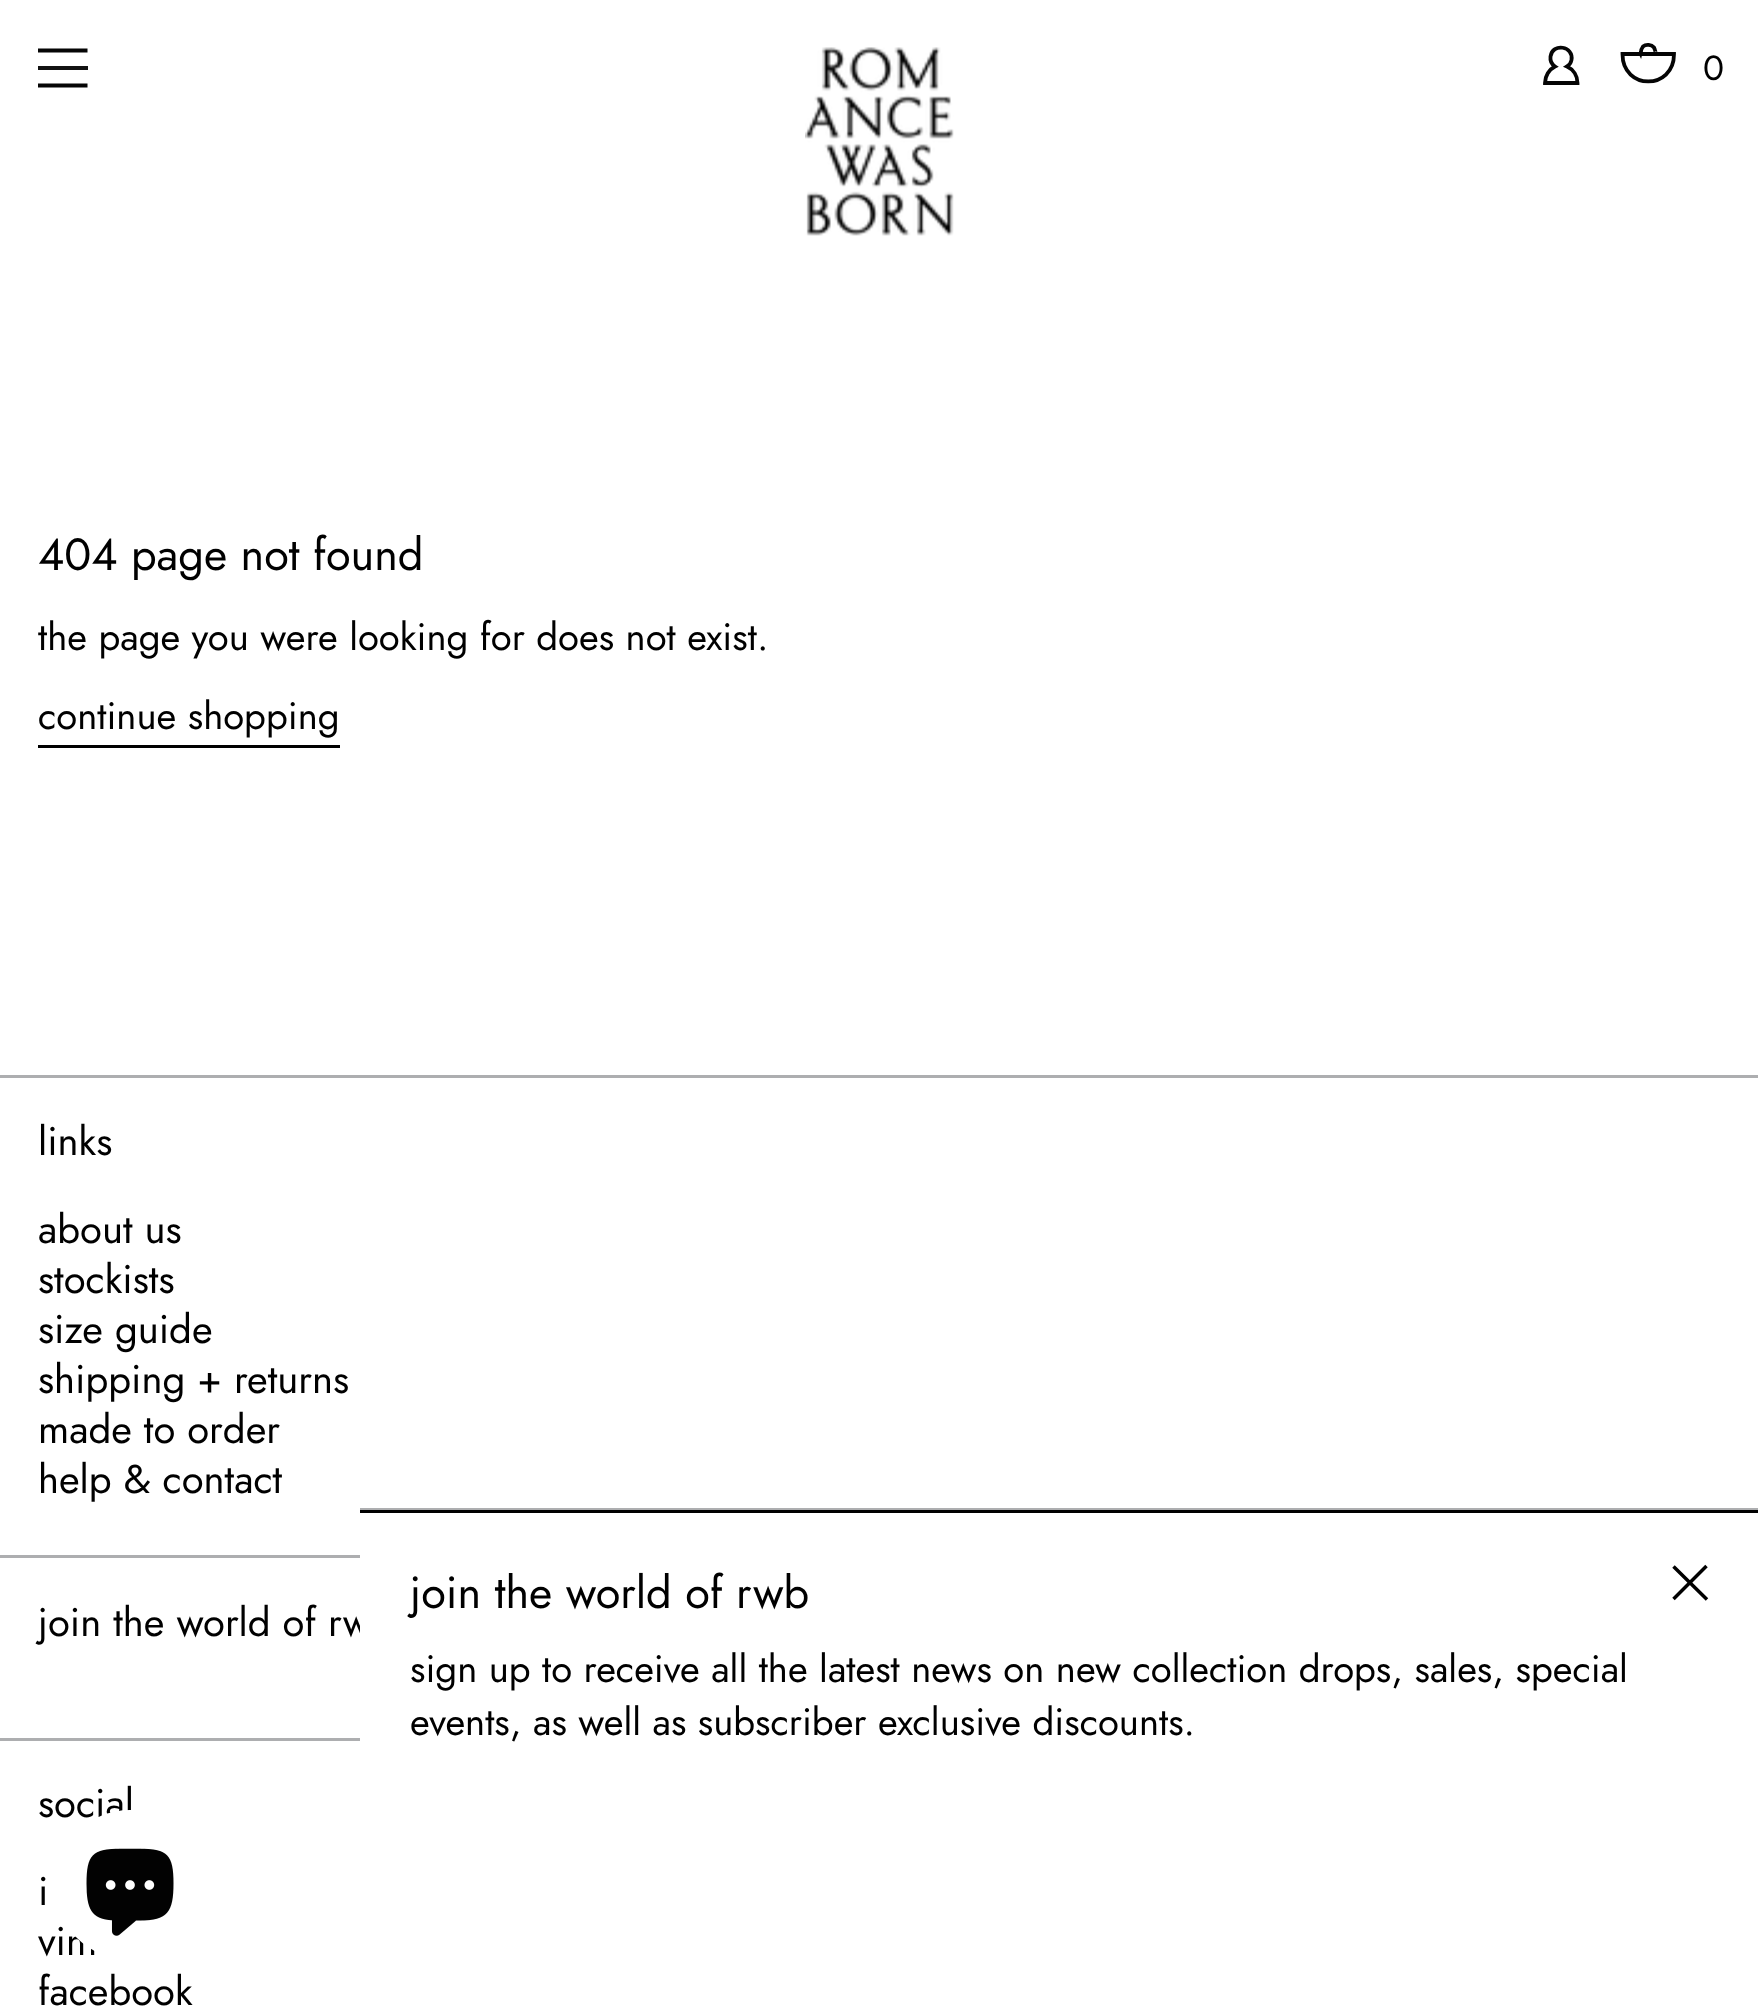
<!DOCTYPE html>
<meta charset="utf-8">
<style>body { margin: 0 } canvas { display: block }</style>
<canvas id="canvas" width="1758" height="2012"></canvas>
<img id="img1" src="images/1.png" hidden>
<img id="img2" src="images/2.png" hidden>
<script>
window.onload = function () {
    const canvas = document.getElementById('canvas');
    const context = canvas.getContext('2d');
    context.miterLimit = 4;
    context.fontKerning = 'normal';

    context.fillStyle = 'rgb(255, 255, 255)';
    context.fillRect(0, 0, 1758, 2012);
    context.drawImage(document.getElementById('img1'), 805, 47, 149, 189);
    context.save();
    context.beginPath();
    context.rect(38, 48, 50, 40);
    context.clip();
    context.beginPath();
    context.moveTo(37.5, 50.5);
    context.lineTo(87.5, 50.5);
    context.strokeStyle = 'rgb(5, 5, 5)';
    context.lineWidth = 3.8;
    context.stroke();
    context.restore();
    context.fillStyle = 'rgb(18, 18, 18)';
    context.fillRect(38, 66, 50, 4);
    context.save();
    context.beginPath();
    context.rect(38, 48, 50, 40);
    context.clip();
    context.beginPath();
    context.moveTo(37.5, 85.5);
    context.lineTo(87.5, 85.5);
    context.strokeStyle = 'rgb(5, 5, 5)';
    context.lineWidth = 3.8;
    context.stroke();
    context.restore();
    context.beginPath();
    context.moveTo(1567, 66.5);
    context.bezierCurveTo(1569.5, 65, 1571, 62.5, 1571.5, 60);
    context.bezierCurveTo(1574, 46, 1552.5, 42.5, 1550.5, 56.5);
    context.bezierCurveTo(1550, 60.5, 1552, 64.5, 1555, 66.5);
    context.bezierCurveTo(1549, 69.5, 1545, 76, 1545, 83);
    context.lineTo(1577.5, 83);
    context.bezierCurveTo(1577.5, 76, 1573.5, 69.5, 1567, 66.5);
    context.closePath();
    context.strokeStyle = 'rgb(5, 5, 5)';
    context.lineWidth = 3.8;
    context.stroke();
    context.beginPath();
    context.moveTo(1656, 52.5);
    context.bezierCurveTo(1655.5, 55, 1655.5, 51, 1655, 50);
    context.lineTo(1654, 47.5);
    context.bezierCurveTo(1651.5, 44.5, 1646, 44, 1643, 46.5);
    context.bezierCurveTo(1642, 48, 1641, 49.5, 1641, 51.5);
    context.lineTo(1640.5, 53.5);
    context.lineTo(1640, 52.5);
    context.moveTo(1622.5, 54);
    context.lineTo(1674, 54);
    context.bezierCurveTo(1674, 90.5, 1622.5, 90.5, 1622.5, 54);
    context.closePath();
    context.stroke();
    context.fillStyle = 'rgb(0, 0, 0)';
    context.fillRect(38, 745, 302, 3);
    context.fillStyle = 'rgb(173, 174, 176)';
    context.fillRect(0, 1075, 1758, 3);
    context.fillRect(0, 1555, 360, 3);
    context.fillRect(0, 1738, 360, 3);
    context.fillRect(360, 1508, 1398, 2);
    context.fillStyle = 'rgb(0, 0, 0)';
    context.fillRect(360, 1510, 1398, 3);
    context.beginPath();
    context.moveTo(1673.5, 1599);
    context.lineTo(1706.5, 1566);
    context.moveTo(1673.5, 1566.5);
    context.lineTo(1707, 1599.5);
    context.strokeStyle = 'rgb(0, 0, 0)';
    context.lineWidth = 3.5;
    context.stroke();
    context.font = '35px Jost';
    context.fillText('0', 1703, 80);
    context.font = '45px Jost';
    context.fillText('404 page not found', 38, 570);
    context.font = '38.25px Jost';
    context.fillText('the page you were looking for does not exist.', 38, 650);
    context.fillText('continue shopping', 38, 729);
    context.font = '40px Jost';
    context.fillText('links', 38, 1155);
    context.fillText('about us', 38, 1243);
    context.fillText('stockists', 38, 1293);
    context.fillText('size guide', 38, 1343);
    context.fillText('shipping + returns', 38, 1393);
    context.fillText('made to order', 38, 1443);
    context.fillText('help & contact', 38, 1493);
    context.fillText('join the world of rw', 38, 1636);
    context.fillText('social', 38, 1817);
    context.fillText('i', 38, 1905);
    context.fillText('vim', 38, 1955);
    context.fillText('facebook', 38, 2005);
    context.fillStyle = 'rgb(255, 255, 255)';
    context.fillRect(360, 1617, 10, 21);
    context.font = '45px Jost';
    context.fillStyle = 'rgb(0, 0, 0)';
    context.fillText('join the world of rwb', 410, 1608);
    context.font = '38.25px Jost';
    context.fillText('sign up to receive all the latest news on new collection drops, sales, special', 410, 1682);
    context.fillText('events, as well as subscriber exclusive discounts.', 410, 1735);
    context.fillStyle = 'rgb(255, 255, 255)';
    context.beginPath();
    context.arc(130, 1885, 75, 0, 2 * Math.PI);
    context.fill();
    context.drawImage(document.getElementById('img2'), 86, 1848, 88, 88);
};
</script>
